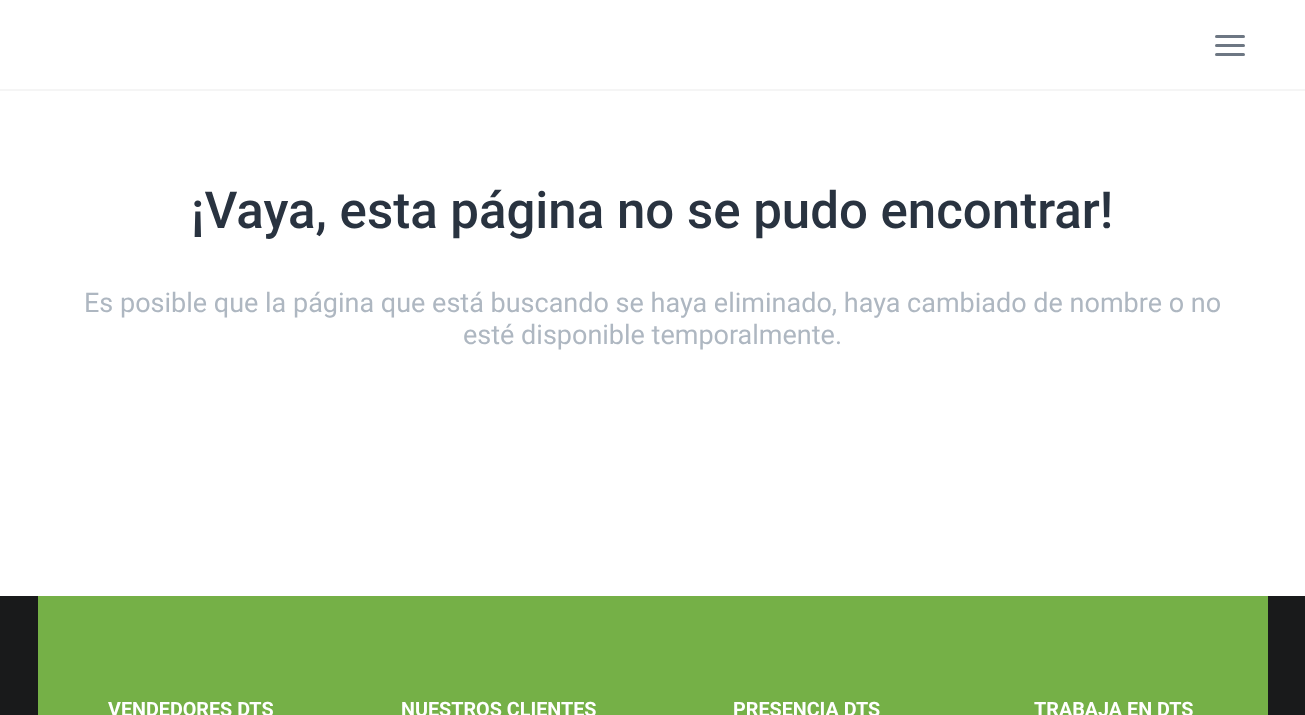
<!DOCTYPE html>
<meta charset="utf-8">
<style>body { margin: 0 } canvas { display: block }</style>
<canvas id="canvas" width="1305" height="715"></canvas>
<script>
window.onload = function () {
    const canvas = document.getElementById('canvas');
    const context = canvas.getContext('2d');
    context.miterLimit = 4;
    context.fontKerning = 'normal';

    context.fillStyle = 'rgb(25, 26, 27)';
    context.fillRect(0, 0, 1305, 715);
    context.fillStyle = 'rgb(255, 255, 255)';
    context.fillRect(0, 0, 1305, 596);
    context.fillStyle = 'rgba(235, 235, 235, 0.5)';
    context.fillRect(0, 89, 1305, 2);
    context.fillStyle = 'rgb(109, 119, 131)';
    context.beginPath();
    context.roundRect(1215, 44, 30, 3, 1.5);
    context.fill();
    context.beginPath();
    context.roundRect(1215, 35, 30, 3, 1.5);
    context.fill();
    context.beginPath();
    context.roundRect(1215, 53, 30, 3, 1.5);
    context.fill();
    context.fillStyle = 'rgb(117, 176, 71)';
    context.fillRect(38, 596, 1230, 119);
    context.font = '500 51px Roboto';
    context.fillStyle = 'rgb(41, 51, 64)';
    context.fillText('¡Vaya, esta página no se pudo encontrar!', 191, 228);
    context.font = '27px Roboto';
    context.fillStyle = 'rgb(174, 183, 193)';
    context.fillText('Es posible que la página que está buscando se haya eliminado, haya cambiado de nombre o no', 84, 312);
    context.fillText('esté disponible temporalmente.', 463, 344);
    context.font = 'bold 19.75px Roboto';
    context.fillStyle = 'rgb(255, 255, 255)';
    context.fillText('VENDEDORES DTS', 108, 716);
    context.fillText('NUESTROS CLIENTES', 401, 716);
    context.fillText('PRESENCIA DTS', 733, 716);
    context.fillText('TRABAJA EN DTS', 1034, 716);
};
</script>
